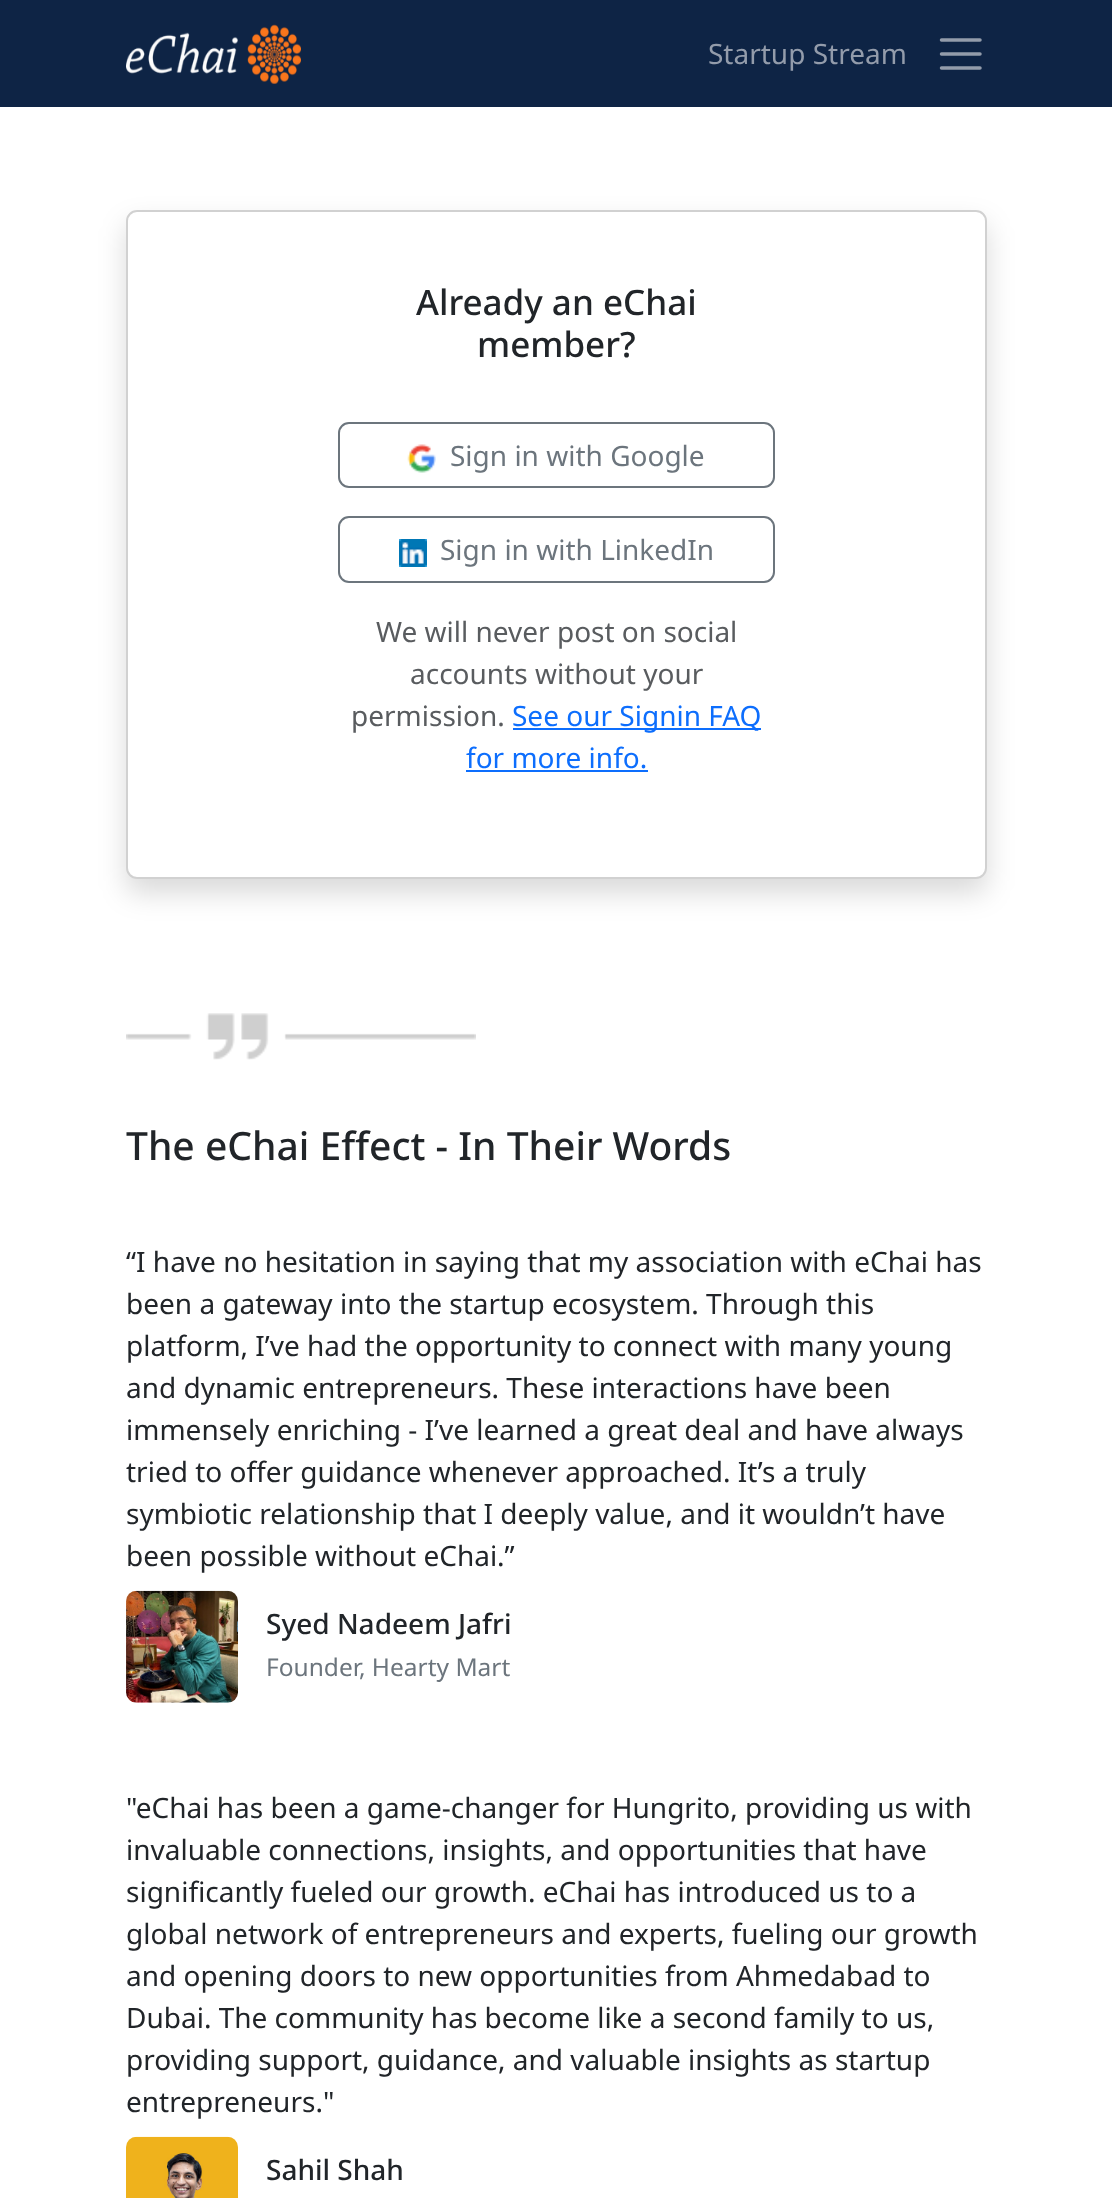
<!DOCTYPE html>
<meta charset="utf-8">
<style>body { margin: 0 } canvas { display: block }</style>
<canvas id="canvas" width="1112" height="2198"></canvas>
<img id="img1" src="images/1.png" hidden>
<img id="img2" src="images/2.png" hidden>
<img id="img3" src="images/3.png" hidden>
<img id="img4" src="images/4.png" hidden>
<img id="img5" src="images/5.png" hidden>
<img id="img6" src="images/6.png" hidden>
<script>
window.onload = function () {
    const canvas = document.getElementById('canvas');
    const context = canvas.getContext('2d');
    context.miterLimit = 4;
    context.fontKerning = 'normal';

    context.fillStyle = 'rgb(255, 255, 255)';
    context.fillRect(0, 0, 1112, 2198);
    context.fillStyle = 'rgb(14, 36, 69)';
    context.fillRect(0, 0, 1112, 107);
    context.drawImage(document.getElementById('img1'), 126, 24, 175, 60);
    context.beginPath();
    context.moveTo(941.5, 40);
    context.lineTo(980, 40);
    context.moveTo(941.5, 54);
    context.lineTo(980, 54);
    context.moveTo(941.5, 68);
    context.lineTo(980, 68);
    context.strokeStyle = 'rgb(147, 156, 171)';
    context.lineWidth = 3.5;
    context.lineCap = 'round';
    context.stroke();
    context.fillStyle = 'rgba(0, 0, 0, 0.15)';
    context.filter = 'blur(14px)';
    context.beginPath();
    context.roundRect(126, 224, 861, 669, 11);
    context.fill();
    context.filter = 'none';
    context.fillStyle = 'rgb(255, 255, 255)';
    context.beginPath();
    context.roundRect(126, 210, 861, 669, 11);
    context.fill();
    context.beginPath();
    context.roundRect(127, 211, 859, 667, 10);
    context.strokeStyle = 'rgba(0, 0, 0, 0.18)';
    context.lineWidth = 2;
    context.stroke();
    context.beginPath();
    context.roundRect(339, 423, 435, 64, 10);
    context.strokeStyle = 'rgb(108, 117, 125)';
    context.stroke();
    context.drawImage(document.getElementById('img2'), 407, 444, 29, 29);
    context.beginPath();
    context.roundRect(339, 517, 435, 65, 10);
    context.stroke();
    context.drawImage(document.getElementById('img3'), 399, 539, 28, 28);
    context.fillStyle = 'rgb(13, 110, 253)';
    context.fillRect(513, 728, 248, 2);
    context.fillRect(466, 770, 182, 2);
    context.drawImage(document.getElementById('img4'), 126, 1013, 350, 47);
    context.drawImage(document.getElementById('img5'), 126, 1590, 112, 113);
    context.drawImage(document.getElementById('img6'), 126, 2136, 112, 62);
    context.font = '28px Noto Sans';
    context.fillStyle = 'rgb(147, 156, 171)';
    context.fillText('Startup Stream', 708, 64);
    context.font = '500 35px Noto Sans';
    context.fillStyle = 'rgb(33, 37, 41)';
    context.fillText('Already an eChai', 416, 315);
    context.fillText('member?', 477, 357);
    context.font = '28px Noto Sans';
    context.fillStyle = 'rgb(108, 117, 125)';
    context.fillText('Sign in with Google', 450, 466);
    context.fillText('Sign in with LinkedIn', 440, 560);
    context.fillStyle = 'rgb(89, 92, 95)';
    context.fillText('We will never post on social', 376, 642);
    context.fillText('accounts without your', 410, 684);
    context.fillText('permission.', 351, 726);
    context.fillStyle = 'rgb(13, 110, 253)';
    context.fillText('See our Signin FAQ', 512, 726);
    context.fillText('for more info.', 466, 768);
    context.font = '500 39px Noto Sans';
    context.fillStyle = 'rgb(33, 37, 41)';
    context.fillText('The eChai Effect - In Their Words', 126, 1160);
    context.font = '28px Noto Sans';
    context.fillText('“I have no hesitation in saying that my association with eChai has', 126, 1272);
    context.fillText('been a gateway into the startup ecosystem. Through this', 126, 1314);
    context.fillText('platform, I’ve had the opportunity to connect with many young', 126, 1356);
    context.fillText('and dynamic entrepreneurs. These interactions have been', 126, 1398);
    context.fillText('immensely enriching - I’ve learned a great deal and have always', 126, 1440);
    context.fillText('tried to offer guidance whenever approached. It’s a truly', 126, 1482);
    context.fillText('symbiotic relationship that I deeply value, and it wouldn’t have', 126, 1524);
    context.fillText('been possible without eChai.”', 126, 1566);
    context.font = '500 28px Noto Sans';
    context.fillText('Syed Nadeem Jafri', 266, 1634);
    context.font = '24.5px Noto Sans';
    context.fillStyle = 'rgb(108, 117, 125)';
    context.fillText('Founder, Hearty Mart', 266, 1676);
    context.font = '28px Noto Sans';
    context.fillStyle = 'rgb(33, 37, 41)';
    context.fillText('"eChai has been a game-changer for Hungrito, providing us with', 126, 1818);
    context.fillText('invaluable connections, insights, and opportunities that have', 126, 1860);
    context.fillText('significantly fueled our growth. eChai has introduced us to a', 126, 1902);
    context.fillText('global network of entrepreneurs and experts, fueling our growth', 126, 1944);
    context.fillText('and opening doors to new opportunities from Ahmedabad to', 126, 1986);
    context.fillText('Dubai. The community has become like a second family to us,', 126, 2028);
    context.fillText('providing support, guidance, and valuable insights as startup', 126, 2070);
    context.fillText('entrepreneurs."', 126, 2112);
    context.font = '500 28px Noto Sans';
    context.fillText('Sahil Shah', 266, 2180);
};
</script>
